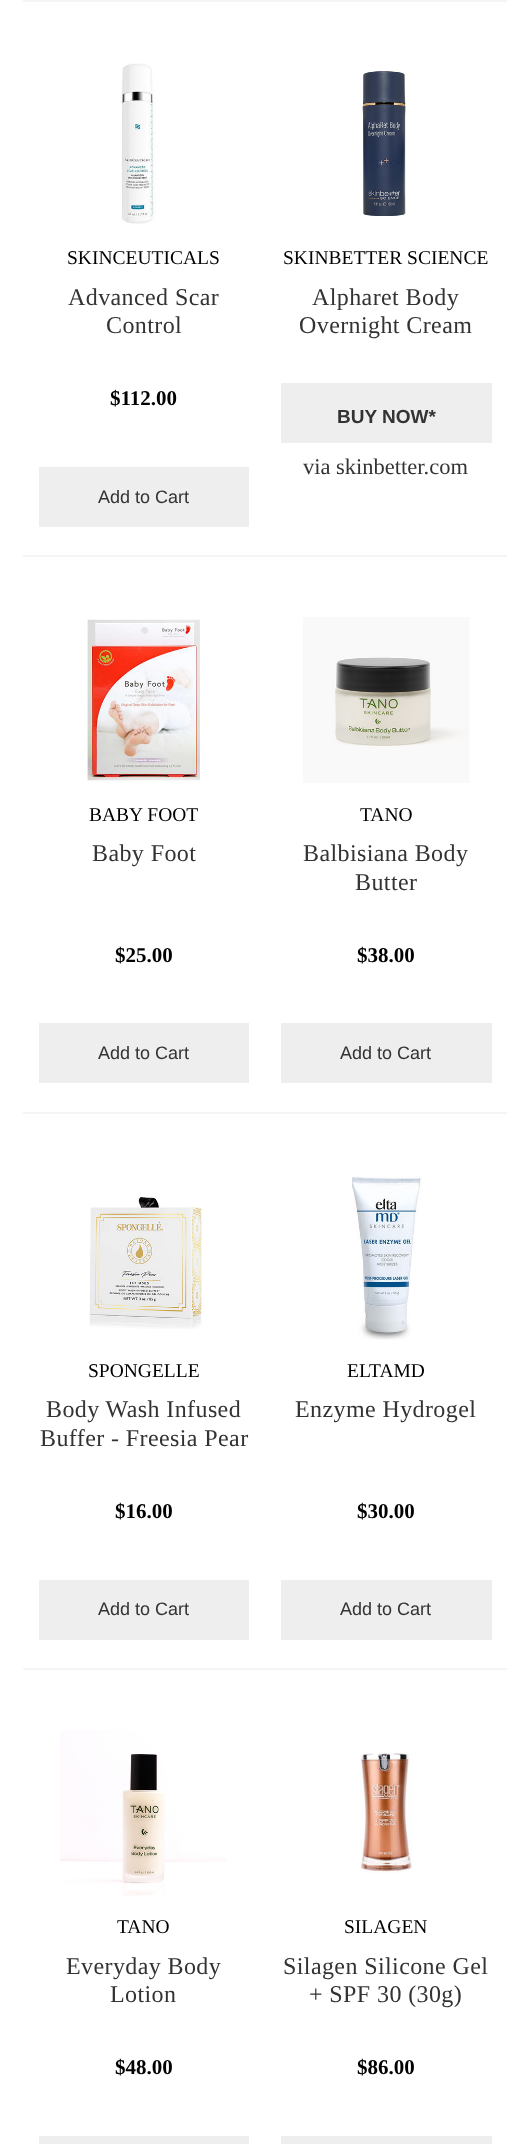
<!DOCTYPE html>
<meta charset="utf-8">
<style>body { margin: 0 } canvas { display: block }</style>
<canvas id="canvas" width="529" height="2144"></canvas>
<img id="img1" src="images/1.png" hidden>
<img id="img2" src="images/2.png" hidden>
<img id="img3" src="images/3.png" hidden>
<img id="img4" src="images/4.png" hidden>
<img id="img5" src="images/5.png" hidden>
<img id="img6" src="images/6.png" hidden>
<img id="img7" src="images/7.png" hidden>
<img id="img8" src="images/8.png" hidden>
<script>
window.onload = function () {
    const canvas = document.getElementById('canvas');
    const context = canvas.getContext('2d');
    context.miterLimit = 4;
    context.fontKerning = 'normal';

    context.fillStyle = 'rgb(255, 255, 255)';
    context.fillRect(0, 0, 529, 2144);
    context.fillStyle = 'rgb(245, 245, 245)';
    context.fillRect(23, 0, 484, 2);
    context.drawImage(document.getElementById('img1'), 121, 63, 35, 161);
    context.fillStyle = 'rgb(238, 238, 238)';
    context.fillRect(39, 467, 210, 60);
    context.drawImage(document.getElementById('img2'), 362, 71, 44, 145);
    context.fillRect(281, 383, 211, 60);
    context.fillStyle = 'rgb(245, 245, 245)';
    context.fillRect(23, 555, 484, 2);
    context.drawImage(document.getElementById('img3'), 87, 619, 114, 162);
    context.fillStyle = 'rgb(238, 238, 238)';
    context.fillRect(39, 1023, 210, 60);
    context.drawImage(document.getElementById('img4'), 303, 617, 167, 166);
    context.fillRect(281, 1023, 211, 60);
    context.fillStyle = 'rgb(245, 245, 245)';
    context.fillRect(23, 1112, 484, 2);
    context.drawImage(document.getElementById('img5'), 89, 1197, 114, 132);
    context.fillStyle = 'rgb(238, 238, 238)';
    context.fillRect(39, 1580, 210, 60);
    context.drawImage(document.getElementById('img6'), 352, 1176, 70, 164);
    context.fillRect(281, 1580, 211, 60);
    context.fillStyle = 'rgb(245, 245, 245)';
    context.fillRect(23, 1668, 484, 2);
    context.drawImage(document.getElementById('img7'), 60, 1730, 167, 166);
    context.fillStyle = 'rgb(238, 238, 238)';
    context.fillRect(39, 2136, 210, 8);
    context.drawImage(document.getElementById('img8'), 360, 1753, 53, 121);
    context.fillRect(281, 2136, 211, 8);
    context.font = '19.5px Liberation Serif';
    context.fillStyle = 'rgb(0, 0, 0)';
    context.fillText('SKINCEUTICALS', 67, 264);
    context.letterSpacing = '0.4px';
    context.font = '24px Liberation Serif';
    context.fillStyle = 'rgb(51, 51, 51)';
    context.fillText('Advanced Scar', 68, 305);
    context.fillText('Control', 106, 333);
    context.letterSpacing = '0px';
    context.font = 'bold 21px Liberation Serif';
    context.fillStyle = 'rgb(0, 0, 0)';
    context.fillText('$112.00', 110, 405);
    context.font = '18px Liberation Sans';
    context.fillStyle = 'rgb(51, 51, 51)';
    context.fillText('Add to Cart', 98, 503);
    context.font = '19.5px Liberation Serif';
    context.fillStyle = 'rgb(0, 0, 0)';
    context.fillText('SKINBETTER SCIENCE', 283, 264);
    context.letterSpacing = '0.4px';
    context.font = '24px Liberation Serif';
    context.fillStyle = 'rgb(51, 51, 51)';
    context.fillText('Alpharet Body', 312, 305);
    context.fillText('Overnight Cream', 299, 333);
    context.letterSpacing = '0px';
    context.font = 'bold 19px Liberation Sans';
    context.fillText('BUY NOW*', 337, 423);
    context.font = '22.5px Liberation Serif';
    context.fillText('via skinbetter.com', 303, 474);
    context.font = '19.5px Liberation Serif';
    context.fillStyle = 'rgb(0, 0, 0)';
    context.fillText('BABY FOOT', 89, 821);
    context.letterSpacing = '0.4px';
    context.font = '24px Liberation Serif';
    context.fillStyle = 'rgb(51, 51, 51)';
    context.fillText('Baby Foot', 92, 861);
    context.letterSpacing = '0px';
    context.font = 'bold 21px Liberation Serif';
    context.fillStyle = 'rgb(0, 0, 0)';
    context.fillText('$25.00', 115, 962);
    context.font = '18px Liberation Sans';
    context.fillStyle = 'rgb(51, 51, 51)';
    context.fillText('Add to Cart', 98, 1059);
    context.font = '19.5px Liberation Serif';
    context.fillStyle = 'rgb(0, 0, 0)';
    context.fillText('TANO', 360, 821);
    context.letterSpacing = '0.4px';
    context.font = '24px Liberation Serif';
    context.fillStyle = 'rgb(51, 51, 51)';
    context.fillText('Balbisiana Body', 303, 861);
    context.fillText('Butter', 355, 890);
    context.letterSpacing = '0px';
    context.font = 'bold 21px Liberation Serif';
    context.fillStyle = 'rgb(0, 0, 0)';
    context.fillText('$38.00', 357, 962);
    context.font = '18px Liberation Sans';
    context.fillStyle = 'rgb(51, 51, 51)';
    context.fillText('Add to Cart', 340, 1059);
    context.font = '19.5px Liberation Serif';
    context.fillStyle = 'rgb(0, 0, 0)';
    context.fillText('SPONGELLE', 88, 1377);
    context.letterSpacing = '0.4px';
    context.font = '24px Liberation Serif';
    context.fillStyle = 'rgb(51, 51, 51)';
    context.fillText('Body Wash Infused', 46, 1417);
    context.fillText('Buffer - Freesia Pear', 40, 1446);
    context.letterSpacing = '0px';
    context.font = 'bold 21px Liberation Serif';
    context.fillStyle = 'rgb(0, 0, 0)';
    context.fillText('$16.00', 115, 1518);
    context.font = '18px Liberation Sans';
    context.fillStyle = 'rgb(51, 51, 51)';
    context.fillText('Add to Cart', 98, 1615);
    context.font = '19.5px Liberation Serif';
    context.fillStyle = 'rgb(0, 0, 0)';
    context.fillText('ELTAMD', 347, 1377);
    context.letterSpacing = '0.4px';
    context.font = '24px Liberation Serif';
    context.fillStyle = 'rgb(51, 51, 51)';
    context.fillText('Enzyme Hydrogel', 295, 1417);
    context.letterSpacing = '0px';
    context.font = 'bold 21px Liberation Serif';
    context.fillStyle = 'rgb(0, 0, 0)';
    context.fillText('$30.00', 357, 1518);
    context.font = '18px Liberation Sans';
    context.fillStyle = 'rgb(51, 51, 51)';
    context.fillText('Add to Cart', 340, 1615);
    context.font = '19.5px Liberation Serif';
    context.fillStyle = 'rgb(0, 0, 0)';
    context.fillText('TANO', 117, 1933);
    context.letterSpacing = '0.4px';
    context.font = '24px Liberation Serif';
    context.fillStyle = 'rgb(51, 51, 51)';
    context.fillText('Everyday Body', 66, 1974);
    context.fillText('Lotion', 110, 2002);
    context.letterSpacing = '0px';
    context.font = 'bold 21px Liberation Serif';
    context.fillStyle = 'rgb(0, 0, 0)';
    context.fillText('$48.00', 115, 2074);
    context.font = '19.5px Liberation Serif';
    context.fillText('SILAGEN', 344, 1933);
    context.letterSpacing = '0.4px';
    context.font = '24px Liberation Serif';
    context.fillStyle = 'rgb(51, 51, 51)';
    context.fillText('Silagen Silicone Gel', 283, 1974);
    context.fillText('+ SPF 30 (30g)', 309, 2002);
    context.letterSpacing = '0px';
    context.font = 'bold 21px Liberation Serif';
    context.fillStyle = 'rgb(0, 0, 0)';
    context.fillText('$86.00', 357, 2074);
};
</script>
